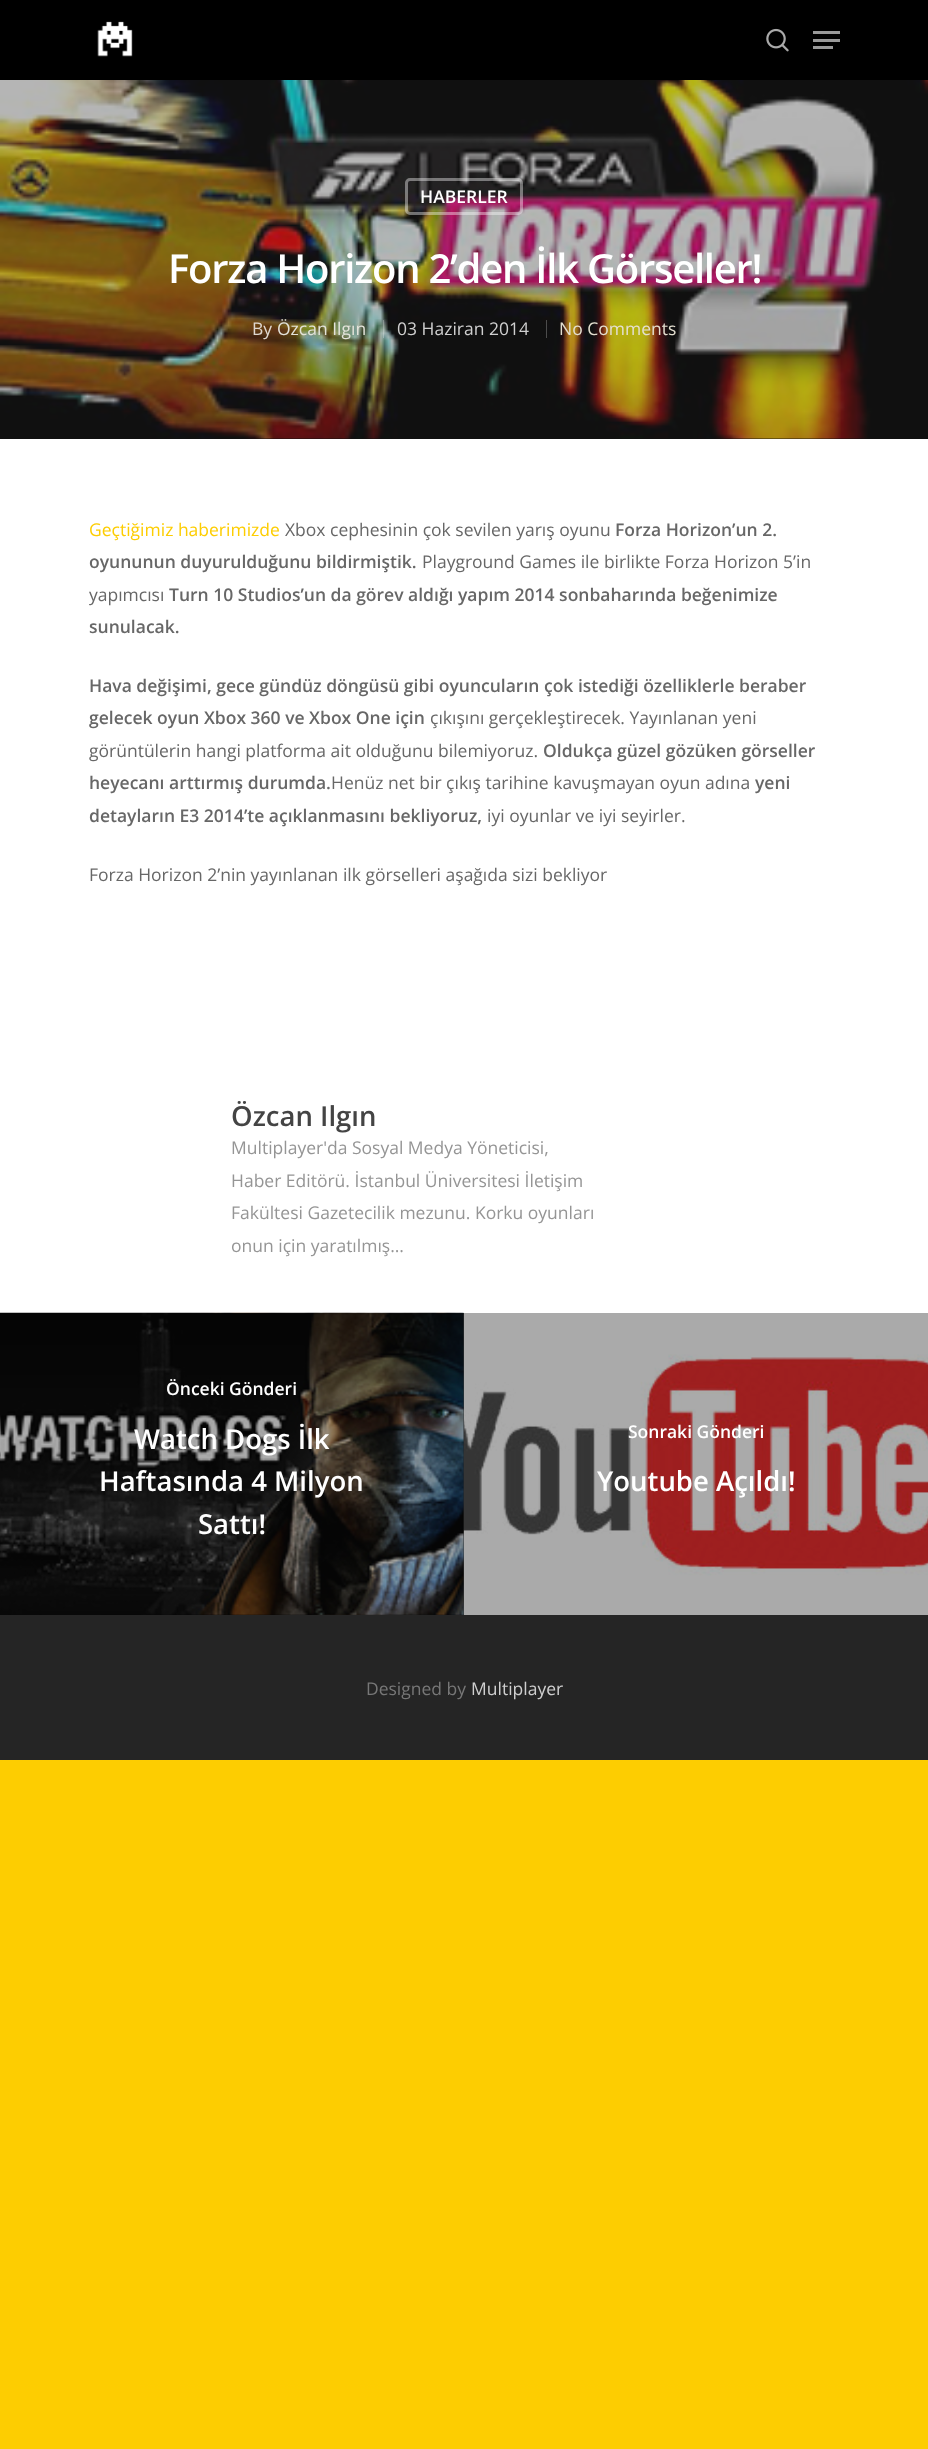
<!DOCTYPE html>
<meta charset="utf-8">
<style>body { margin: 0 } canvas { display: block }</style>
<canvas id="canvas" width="928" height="2449"></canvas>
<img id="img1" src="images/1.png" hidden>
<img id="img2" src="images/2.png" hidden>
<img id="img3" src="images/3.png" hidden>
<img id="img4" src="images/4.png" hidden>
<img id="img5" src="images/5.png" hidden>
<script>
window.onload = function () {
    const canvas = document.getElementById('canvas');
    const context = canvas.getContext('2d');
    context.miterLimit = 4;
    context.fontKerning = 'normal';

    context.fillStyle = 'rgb(253, 205, 1)';
    context.fillRect(0, 0, 928, 2449);
    context.fillStyle = 'rgb(255, 255, 255)';
    context.fillRect(0, 439, 928, 874);
    context.fillStyle = 'rgb(0, 0, 0)';
    context.fillRect(0, 0, 928, 80);
    context.drawImage(document.getElementById('img1'), 97, 21, 36, 36);
    context.drawImage(document.getElementById('img2'), 766, 28, 23, 24);
    context.fillStyle = 'rgb(153, 153, 153)';
    context.fillRect(813, 31, 27, 3);
    context.fillRect(813, 46, 20, 3);
    context.fillRect(813, 39, 27, 3);
    context.fillStyle = 'rgb(16, 16, 16)';
    context.fillRect(0, 438, 928, 1);
    context.drawImage(document.getElementById('img3'), 0, 80, 928, 359);
    context.beginPath();
    context.roundRect(406.5, 179.5, 115, 34, 3.5);
    context.strokeStyle = 'rgba(255, 255, 255, 0.4)';
    context.lineWidth = 3;
    context.stroke();
    context.fillStyle = 'rgba(255, 255, 255, 0.25)';
    context.fillRect(383, 320, 1, 18);
    context.fillStyle = 'rgb(76, 76, 76)';
    context.fillRect(546, 320, 1, 18);
    context.fillStyle = 'rgb(51, 51, 51)';
    context.fillRect(463, 1313, 1, 302);
    context.drawImage(document.getElementById('img4'), 0, 1312, 464, 303);
    context.drawImage(document.getElementById('img5'), 463, 1313, 465, 302);
    context.fillStyle = 'rgba(13, 13, 13, 0.35)';
    context.fillRect(0, 1313, 464, 302);
    context.fillStyle = 'rgb(37, 37, 37)';
    context.fillRect(0, 1615, 928, 145);
    context.font = '600 17.5px Open Sans';
    context.fillStyle = 'rgb(255, 255, 255)';
    context.fillText('HABERLER', 420, 203);
    context.letterSpacing = '-1.25px';
    context.font = '600 40px Open Sans';
    context.fillText('Forza Horizon 2’den İlk Görseller!', 168, 283);
    context.letterSpacing = '0px';
    context.font = '17.5px Open Sans';
    context.fillStyle = 'rgb(223, 215, 208)';
    context.fillText('By', 252, 335);
    context.fillStyle = 'rgb(227, 227, 218)';
    context.fillText('Özcan Ilgın', 277, 335);
    context.fillStyle = 'rgb(207, 207, 207)';
    context.fillText('03 Haziran 2014', 397, 335);
    context.fillStyle = 'rgb(228, 223, 208)';
    context.fillText('No Comments', 559, 335);
    context.fillStyle = 'rgb(253, 205, 1)';
    context.fillText('Geçtiğimiz haberimizde', 89, 536);
    context.fillStyle = 'rgb(103, 103, 103)';
    context.fillText('Xbox cephesinin çok sevilen yarış oyunu', 285, 536);
    context.font = '600 17.5px Open Sans';
    context.fillText('Forza Horizon’un 2.', 615, 536);
    context.fillText('oyununun duyurulduğunu bildirmiştik.', 89, 568);
    context.font = '17.5px Open Sans';
    context.fillText('Playground Games ile birlikte Forza Horizon 5’in', 422, 568);
    context.fillText('yapımcısı', 89, 601);
    context.font = '600 17.5px Open Sans';
    context.fillText('Turn 10 Studios’un da görev aldığı yapım 2014 sonbaharında beğenimize', 169, 601);
    context.fillText('sunulacak.', 89, 633);
    context.fillText('Hava değişimi, gece gündüz döngüsü gibi oyuncuların çok istediği özelliklerle beraber', 89, 692);
    context.fillText('gelecek oyun Xbox 360 ve Xbox One için', 89, 724);
    context.font = '17.5px Open Sans';
    context.fillText('çıkışını gerçekleştirecek. Yayınlanan yeni', 430, 724);
    context.fillText('görüntülerin hangi platforma ait olduğunu bilemiyoruz.', 89, 757);
    context.font = '600 17.5px Open Sans';
    context.fillText('Oldukça güzel gözüken görseller', 543, 757);
    context.fillText('heyecanı arttırmış durumda.', 89, 789);
    context.font = '17.5px Open Sans';
    context.fillText('Henüz net bir çıkış tarihine kavuşmayan oyun adına', 331, 789);
    context.font = '600 17.5px Open Sans';
    context.fillText('yeni', 755, 789);
    context.fillText('detayların E3 2014’te açıklanmasını bekliyoruz,', 89, 822);
    context.font = '17.5px Open Sans';
    context.fillText('iyi oyunlar ve iyi seyirler.', 487, 822);
    context.fillText('Forza Horizon 2’nin yayınlanan ilk görselleri aşağıda sizi bekliyor', 89, 881);
    context.font = '600 27.5px Open Sans';
    context.fillStyle = 'rgb(68, 68, 68)';
    context.fillText('Özcan Ilgın', 231, 1126);
    context.font = '17.5px Open Sans';
    context.fillStyle = 'rgb(149, 149, 149)';
    context.fillText('Multiplayer\'da Sosyal Medya Yöneticisi,', 231, 1154);
    context.fillText('Haber Editörü. İstanbul Üniversitesi İletişim', 231, 1187);
    context.fillText('Fakültesi Gazetecilik mezunu. Korku oyunları', 231, 1219);
    context.fillText('onun için yaratılmış...', 231, 1252);
    context.font = '600 17.5px Open Sans';
    context.fillStyle = 'rgb(255, 255, 255)';
    context.fillText('Önceki Gönderi', 166, 1395);
    context.font = '600 27.5px Open Sans';
    context.fillText('Watch Dogs İlk', 134, 1449);
    context.fillText('Haftasında 4 Milyon', 99, 1491);
    context.fillText('Sattı!', 198, 1534);
    context.font = '600 17.5px Open Sans';
    context.fillText('Sonraki Gönderi', 628, 1438);
    context.font = '600 27.5px Open Sans';
    context.fillText('Youtube Açıldı!', 597, 1491);
    context.font = '17.5px Open Sans';
    context.fillStyle = 'rgb(119, 119, 119)';
    context.fillText('Designed by', 366, 1695);
    context.fillStyle = 'rgb(207, 207, 207)';
    context.fillText('Multiplayer', 471, 1695);
};
</script>
